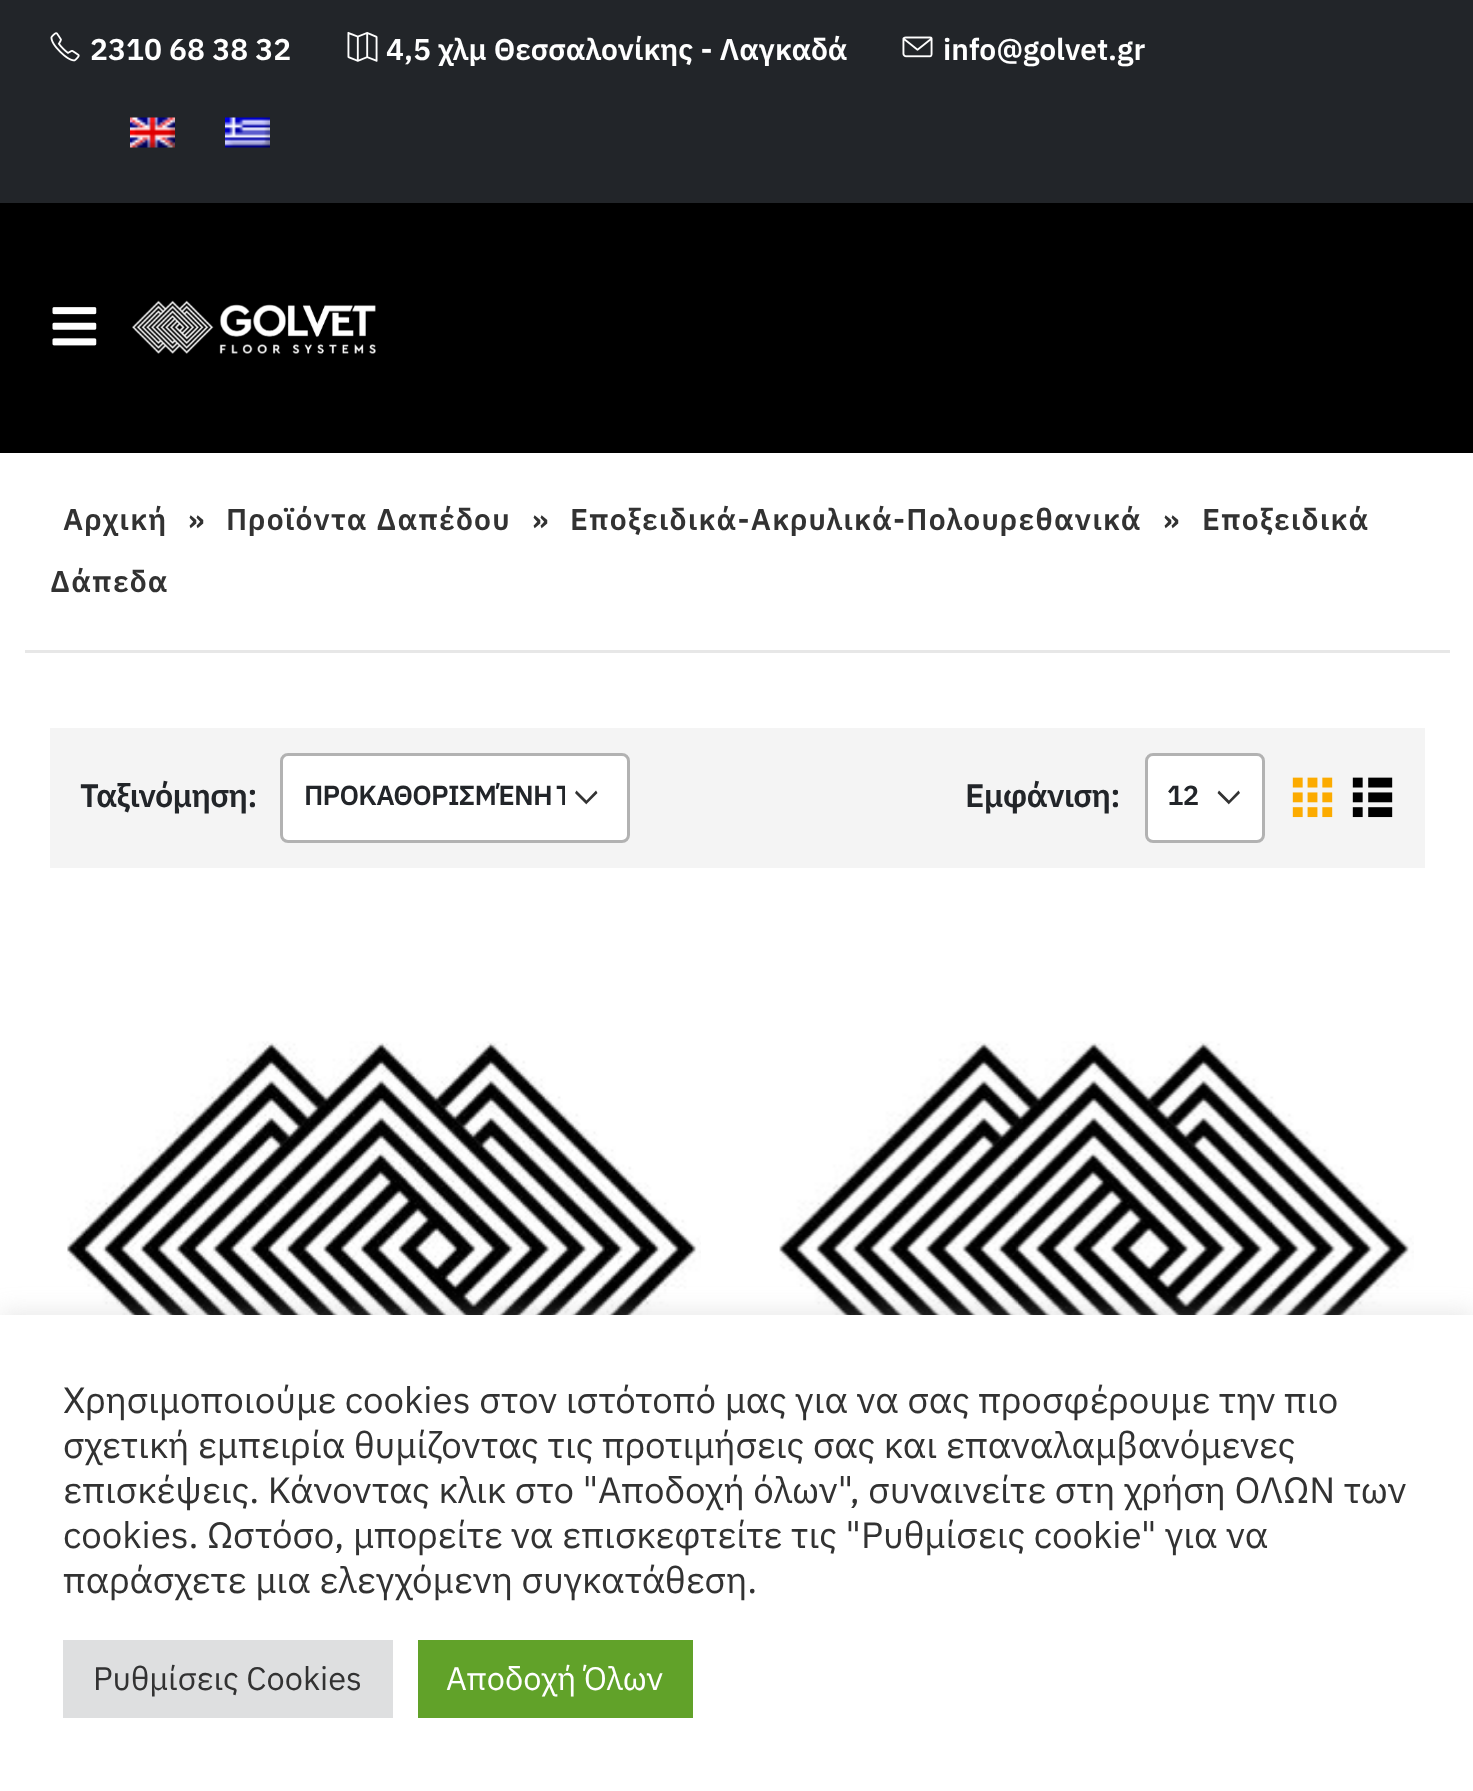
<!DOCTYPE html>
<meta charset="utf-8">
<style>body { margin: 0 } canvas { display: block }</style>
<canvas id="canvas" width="1473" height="1791"></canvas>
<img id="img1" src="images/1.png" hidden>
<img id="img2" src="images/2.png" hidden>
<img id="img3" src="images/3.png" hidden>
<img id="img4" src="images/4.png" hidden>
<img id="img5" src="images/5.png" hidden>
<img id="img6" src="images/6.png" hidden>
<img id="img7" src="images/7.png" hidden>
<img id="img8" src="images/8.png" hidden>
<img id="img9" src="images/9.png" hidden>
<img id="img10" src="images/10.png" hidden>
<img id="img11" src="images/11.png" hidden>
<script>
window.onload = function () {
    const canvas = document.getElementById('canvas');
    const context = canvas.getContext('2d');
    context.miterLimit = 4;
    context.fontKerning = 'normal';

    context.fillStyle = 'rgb(255, 255, 255)';
    context.fillRect(0, 0, 1473, 1791);
    context.fillStyle = 'rgb(34, 37, 41)';
    context.fillRect(0, 0, 1473, 203);
    context.drawImage(document.getElementById('img1'), 50, 32, 30, 30);
    context.drawImage(document.getElementById('img2'), 347, 31, 31, 31);
    context.drawImage(document.getElementById('img3'), 902, 36, 31, 22);
    context.drawImage(document.getElementById('img4'), 130, 117, 45, 31);
    context.drawImage(document.getElementById('img5'), 225, 117, 45, 31);
    context.fillStyle = 'rgb(0, 0, 0)';
    context.fillRect(0, 203, 1473, 250);
    context.drawImage(document.getElementById('img6'), 52, 307, 45, 39);
    context.drawImage(document.getElementById('img7'), 132, 300, 244, 54);
    context.fillStyle = 'rgb(231, 231, 231)';
    context.fillRect(25, 650, 1425, 3);
    context.fillStyle = 'rgb(244, 244, 244)';
    context.fillRect(50, 728, 1375, 140);
    context.fillStyle = 'rgb(255, 255, 255)';
    context.beginPath();
    context.roundRect(280, 753, 350, 90, 8);
    context.fill();
    context.fillStyle = 'rgb(51, 51, 51)';
    context.beginPath();
    context.moveTo(586.5, 804);
    context.lineTo(597.5, 793);
    context.lineTo(596, 790.5);
    context.lineTo(586.5, 800.5);
    context.lineTo(576.5, 790.5);
    context.lineTo(575, 793);
    context.lineTo(586.5, 804.5);
    context.closePath();
    context.fill('evenodd');
    context.beginPath();
    context.roundRect(281.5, 754.5, 347, 87, 6.5);
    context.strokeStyle = 'rgba(0, 0, 0, 0.3)';
    context.lineWidth = 3;
    context.stroke();
    context.fillStyle = 'rgb(255, 255, 255)';
    context.beginPath();
    context.roundRect(1145, 753, 120, 90, 8);
    context.fill();
    context.fillStyle = 'rgb(51, 51, 51)';
    context.beginPath();
    context.moveTo(1229, 804);
    context.lineTo(1240, 793);
    context.lineTo(1238.5, 790.5);
    context.lineTo(1229, 800.5);
    context.lineTo(1219, 790.5);
    context.lineTo(1217.5, 793);
    context.lineTo(1229, 804.5);
    context.closePath();
    context.fill('evenodd');
    context.beginPath();
    context.roundRect(1146.5, 754.5, 117, 87, 6.5);
    context.stroke();
    context.drawImage(document.getElementById('img8'), 1292, 777, 41, 41);
    context.drawImage(document.getElementById('img9'), 1352, 777, 41, 41);
    context.drawImage(document.getElementById('img10'), 67, 1041, 634, 274);
    context.drawImage(document.getElementById('img11'), 779, 1041, 635, 274);
    context.fillStyle = 'rgba(172, 171, 171, 0.3)';
    context.filter = 'blur(12.5px)';
    context.beginPath();
    context.rect(0, 1313, 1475, 477);
    context.fill();
    context.filter = 'none';
    context.fillStyle = 'rgb(255, 255, 255)';
    context.fillRect(0, 1315, 1473, 476);
    context.fillStyle = 'rgb(222, 223, 224)';
    context.fillRect(63, 1640, 330, 78);
    context.fillStyle = 'rgb(97, 162, 41)';
    context.fillRect(418, 1640, 275, 78);
    context.font = '600 30px IBM Plex Sans';
    context.fillStyle = 'rgb(255, 255, 255)';
    context.fillText('2310 68 38 32', 90, 60);
    context.fillText('4,5 χλμ Θεσσαλονίκης - Λαγκαδά', 386, 60);
    context.fillText('info@golvet.gr', 943, 60);
    context.letterSpacing = '1.25px';
    context.fillStyle = 'rgb(50, 50, 50)';
    context.fillText('Αρχική', 63, 530);
    context.fillText('»', 188, 530);
    context.fillText('Προϊόντα Δαπέδου', 226, 530);
    context.fillText('»', 532, 530);
    context.fillText('Εποξειδικά-Ακρυλικά-Πολουρεθανικά', 570, 530);
    context.fillText('»', 1163, 530);
    context.fillText('Εποξειδικά', 1202, 530);
    context.fillText('Δάπεδα', 50, 592);
    context.letterSpacing = '-0.75px';
    context.font = '600 32.5px IBM Plex Sans';
    context.fillStyle = 'rgb(34, 37, 41)';
    context.fillText('Ταξινόμηση:', 80, 807);
    context.save();
    context.beginPath();
    context.rect(303, 778, 262, 40);
    context.clip();
    context.wordSpacing = '-2px';
    context.font = '600 27.5px IBM Plex Sans';
    context.fillText('ΠΡΟΚΑΘΟΡΙΣΜΈΝΗ Τ', 304, 805);
    context.restore();
    context.fillText('Εμφάνιση:', 965, 807);
    context.font = '600 27.5px IBM Plex Sans';
    context.fillText('12', 1167, 805);
    context.letterSpacing = '0px';
    context.font = '36.65px IBM Plex Sans';
    context.fillStyle = 'rgb(50, 50, 50)';
    context.fillText('Χρησιμοποιούμε cookies στον ιστότοπό μας για να σας προσφέρουμε την πιο', 63, 1413);
    context.fillText('σχετική εμπειρία θυμίζοντας τις προτιμήσεις σας και επαναλαμβανόμενες', 63, 1458);
    context.fillText('επισκέψεις. Κάνοντας κλικ στο "Αποδοχή όλων", συναινείτε στη χρήση ΟΛΩΝ των', 63, 1503);
    context.fillText('cookies. Ωστόσο, μπορείτε να επισκεφτείτε τις "Ρυθμίσεις cookie" για να', 63, 1548);
    context.fillText('παράσχετε μια ελεγχόμενη συγκατάθεση.', 63, 1593);
    context.font = '32.5px IBM Plex Sans';
    context.fillText('Ρυθμίσεις Cookies', 93, 1690);
    context.fillStyle = 'rgb(255, 255, 255)';
    context.fillText('Αποδοχή Όλων', 446, 1690);
};
</script>
